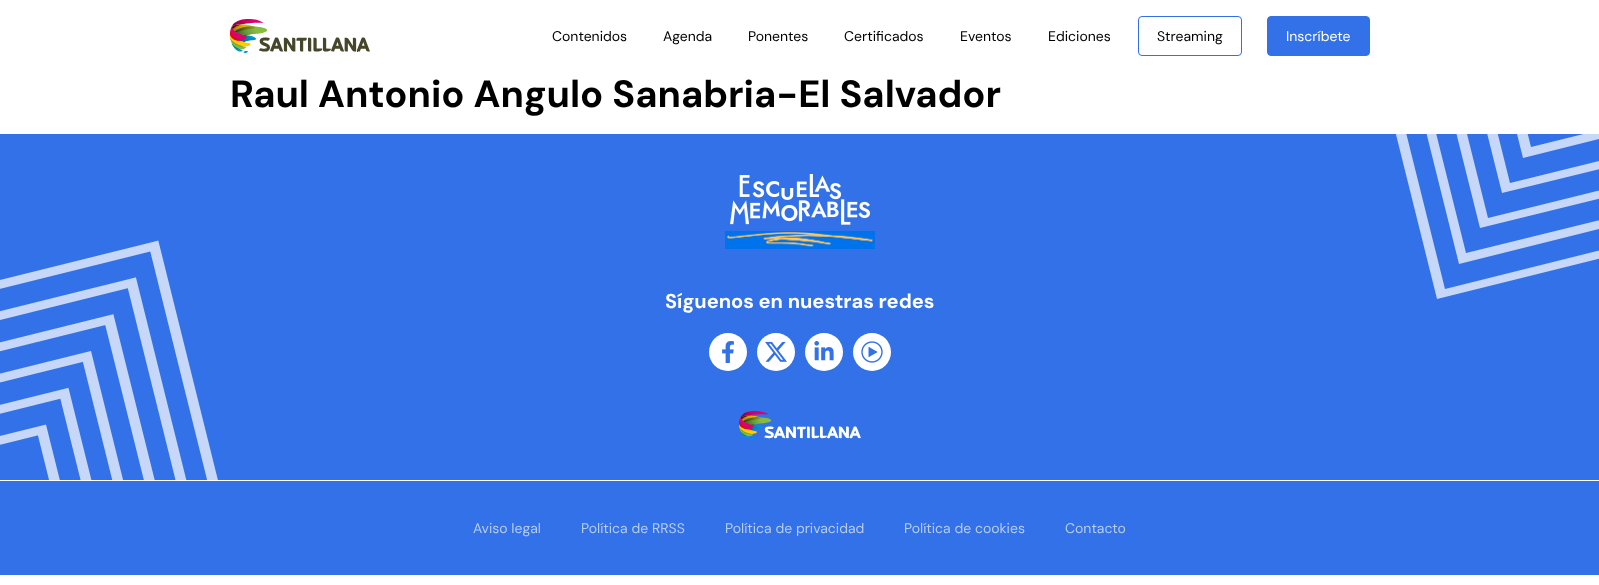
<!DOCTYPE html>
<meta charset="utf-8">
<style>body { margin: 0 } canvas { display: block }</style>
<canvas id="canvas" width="1599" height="585"></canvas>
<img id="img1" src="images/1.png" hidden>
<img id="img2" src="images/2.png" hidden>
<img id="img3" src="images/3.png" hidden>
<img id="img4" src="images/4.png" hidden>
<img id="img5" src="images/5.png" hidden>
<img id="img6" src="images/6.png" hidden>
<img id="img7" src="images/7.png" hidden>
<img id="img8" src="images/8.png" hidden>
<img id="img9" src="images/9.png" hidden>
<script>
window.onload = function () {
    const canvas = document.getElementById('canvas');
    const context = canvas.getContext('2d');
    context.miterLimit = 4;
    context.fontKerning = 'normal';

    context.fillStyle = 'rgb(255, 255, 255)';
    context.fillRect(0, 0, 1599, 585);
    context.drawImage(document.getElementById('img1'), 230, 19, 140, 34);
    context.beginPath();
    context.roundRect(1138.5, 16.5, 103, 39, 3.5);
    context.strokeStyle = 'rgb(50, 113, 231)';
    context.stroke();
    context.fillStyle = 'rgb(50, 113, 231)';
    context.beginPath();
    context.roundRect(1267.5, 16.5, 102, 39, 3.5);
    context.fill();
    context.stroke();
    context.fillRect(0, 134, 1599, 441);
    context.fillStyle = 'rgb(255, 255, 255)';
    context.fillRect(0, 480, 1599, 1);
    context.drawImage(document.getElementById('img2'), 730, 174, 140, 51);
    context.save();
    context.beginPath();
    context.rect(1357, 134, 242, 165);
    context.clip();
    context.fillStyle = 'rgb(198, 215, 248)';
    context.beginPath();
    context.moveTo(1471, -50);
    context.lineTo(1523, 158);
    context.lineTo(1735, 105);
    context.lineTo(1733, 97);
    context.lineTo(1531, 147);
    context.lineTo(1481, -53);
    context.closePath();
    context.fill();
    context.beginPath();
    context.moveTo(1443, -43);
    context.lineTo(1502, 193);
    context.lineTo(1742, 134);
    context.lineTo(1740, 126);
    context.lineTo(1510, 183);
    context.lineTo(1453, -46);
    context.closePath();
    context.fill();
    context.beginPath();
    context.moveTo(1414, -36);
    context.lineTo(1480, 228);
    context.lineTo(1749, 162);
    context.lineTo(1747, 154);
    context.lineTo(1488, 218);
    context.lineTo(1424, -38);
    context.closePath();
    context.fill();
    context.beginPath();
    context.moveTo(1386, -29);
    context.lineTo(1459, 264);
    context.lineTo(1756, 190);
    context.lineTo(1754, 182);
    context.lineTo(1466, 253);
    context.lineTo(1395, -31);
    context.closePath();
    context.fill();
    context.beginPath();
    context.moveTo(1357, -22);
    context.lineTo(1437, 299);
    context.lineTo(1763, 218);
    context.lineTo(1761, 210);
    context.lineTo(1445, 289);
    context.lineTo(1367, -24);
    context.closePath();
    context.fill();
    context.restore();
    context.drawImage(document.getElementById('img3'), 0, 240, 218, 240);
    context.drawImage(document.getElementById('img4'), 725, 231, 150, 18);
    context.beginPath();
    context.arc(728, 352, 19, 0, 2 * Math.PI);
    context.fill();
    context.drawImage(document.getElementById('img5'), 722, 341, 12, 22);
    context.beginPath();
    context.arc(776, 352, 19, 0, 2 * Math.PI);
    context.fill();
    context.drawImage(document.getElementById('img6'), 765, 341, 22, 21);
    context.beginPath();
    context.arc(824, 352, 19, 0, 2 * Math.PI);
    context.fill();
    context.drawImage(document.getElementById('img7'), 814, 341, 20, 20);
    context.beginPath();
    context.arc(872, 352, 19, 0, 2 * Math.PI);
    context.fill();
    context.drawImage(document.getElementById('img8'), 861, 341, 22, 22);
    context.drawImage(document.getElementById('img9'), 739, 411, 122, 28);
    context.font = '14px DM Sans';
    context.fillStyle = 'rgb(0, 0, 0)';
    context.fillText('Contenidos', 552, 41);
    context.fillText('Agenda', 663, 41);
    context.fillText('Ponentes', 748, 41);
    context.fillText('Certificados', 844, 41);
    context.fillText('Eventos', 960, 41);
    context.fillText('Ediciones', 1048, 41);
    context.fillText('Streaming', 1157, 41);
    context.fillStyle = 'rgb(255, 255, 255)';
    context.fillText('Inscríbete', 1286, 41);
    context.font = 'bold 38px DM Sans';
    context.fillStyle = 'rgb(0, 0, 0)';
    context.fillText('Raul Antonio Angulo Sanabria-El Salvador', 230, 107);
    context.font = 'bold 20px DM Sans';
    context.fillStyle = 'rgb(255, 255, 255)';
    context.fillText('Síguenos en nuestras redes', 665, 308);
    context.font = '14px DM Sans';
    context.fillStyle = 'rgb(181, 204, 246)';
    context.fillText('Aviso legal', 473, 533);
    context.fillText('Política de RRSS', 581, 533);
    context.fillText('Política de privacidad', 725, 533);
    context.fillText('Política de cookies', 904, 533);
    context.fillText('Contacto', 1065, 533);
};
</script>
